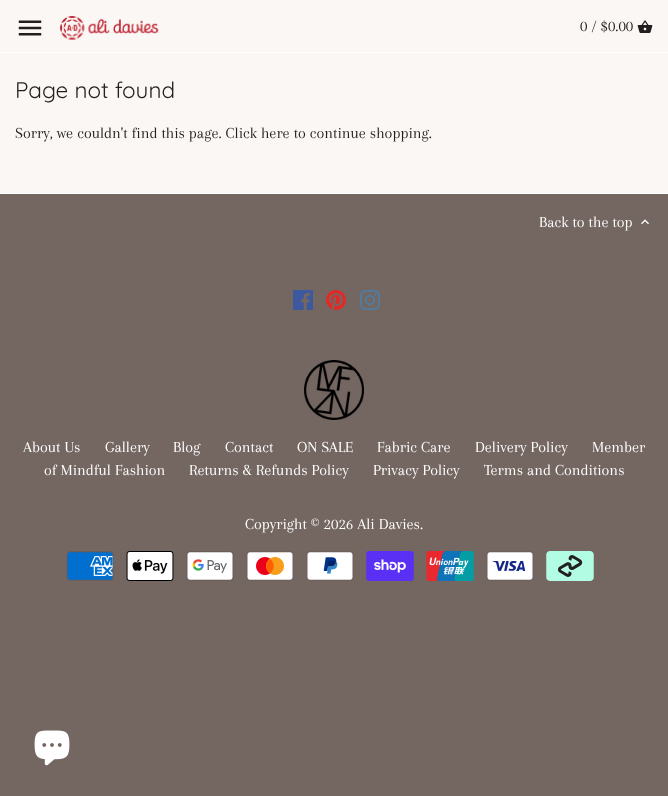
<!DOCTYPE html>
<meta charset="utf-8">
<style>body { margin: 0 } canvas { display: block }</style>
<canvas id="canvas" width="668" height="796"></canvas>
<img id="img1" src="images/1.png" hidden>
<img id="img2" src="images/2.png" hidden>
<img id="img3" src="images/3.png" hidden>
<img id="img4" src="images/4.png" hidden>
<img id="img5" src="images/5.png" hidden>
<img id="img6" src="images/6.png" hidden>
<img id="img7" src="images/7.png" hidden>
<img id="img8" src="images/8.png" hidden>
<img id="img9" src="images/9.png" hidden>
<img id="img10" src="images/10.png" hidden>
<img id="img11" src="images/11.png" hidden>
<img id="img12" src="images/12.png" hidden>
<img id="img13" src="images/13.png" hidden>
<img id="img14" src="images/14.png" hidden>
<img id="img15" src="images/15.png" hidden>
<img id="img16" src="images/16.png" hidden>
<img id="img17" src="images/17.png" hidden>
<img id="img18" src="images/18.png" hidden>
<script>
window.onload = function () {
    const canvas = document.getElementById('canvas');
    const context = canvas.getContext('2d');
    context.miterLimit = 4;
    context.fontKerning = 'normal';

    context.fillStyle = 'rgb(116, 102, 97)';
    context.fillRect(0, 0, 668, 796);
    context.fillStyle = 'rgb(250, 247, 244)';
    context.fillRect(0, 0, 668, 193);
    context.fillStyle = 'rgb(255, 255, 255)';
    context.fillRect(0, 52, 668, 1);
    context.drawImage(document.getElementById('img1'), 18, 20, 24, 16);
    context.drawImage(document.getElementById('img2'), 60, 16, 99, 25);
    context.drawImage(document.getElementById('img3'), 637, 20, 16, 13);
    context.fillRect(0, 193, 668, 1);
    context.drawImage(document.getElementById('img4'), 641, 219, 8, 6);
    context.drawImage(document.getElementById('img5'), 293, 290, 20, 20);
    context.drawImage(document.getElementById('img6'), 326, 290, 20, 20);
    context.drawImage(document.getElementById('img7'), 360, 290, 20, 20);
    context.drawImage(document.getElementById('img8'), 304, 360, 60, 60);
    context.drawImage(document.getElementById('img9'), 66, 551, 48, 30);
    context.drawImage(document.getElementById('img10'), 126, 551, 48, 30);
    context.drawImage(document.getElementById('img11'), 186, 551, 48, 30);
    context.drawImage(document.getElementById('img12'), 246, 551, 48, 30);
    context.drawImage(document.getElementById('img13'), 306, 551, 48, 30);
    context.drawImage(document.getElementById('img14'), 366, 551, 48, 30);
    context.drawImage(document.getElementById('img15'), 426, 551, 48, 30);
    context.drawImage(document.getElementById('img16'), 486, 551, 48, 30);
    context.drawImage(document.getElementById('img17'), 546, 551, 48, 30);
    context.drawImage(document.getElementById('img18'), 34, 730, 36, 36);
    context.font = '16px Arapey';
    context.fillStyle = 'rgb(34, 31, 31)';
    context.fillText('0 / $0.00', 580, 31);
    context.font = '22.5px Quicksand';
    context.fillText('Page not found', 15, 98);
    context.font = '16px Arapey';
    context.fillText('Sorry, we couldn\'t find this page. Click here to continue shopping.', 15, 138);
    context.fillStyle = 'rgb(255, 255, 255)';
    context.fillText('Back to the top', 539, 227);
    context.fillText('About Us', 23, 452);
    context.fillText('Gallery', 105, 452);
    context.fillText('Blog', 173, 452);
    context.fillText('Contact', 225, 452);
    context.fillText('ON SALE', 297, 452);
    context.fillText('Fabric Care', 377, 452);
    context.fillText('Delivery Policy', 475, 452);
    context.fillText('Member', 592, 452);
    context.fillText('of Mindful Fashion', 44, 475);
    context.fillText('Returns & Refunds Policy', 189, 475);
    context.fillText('Privacy Policy', 373, 475);
    context.fillText('Terms and Conditions', 484, 475);
    context.fillText('Copyright © 2026 Ali Davies.', 245, 529);
};
</script>
